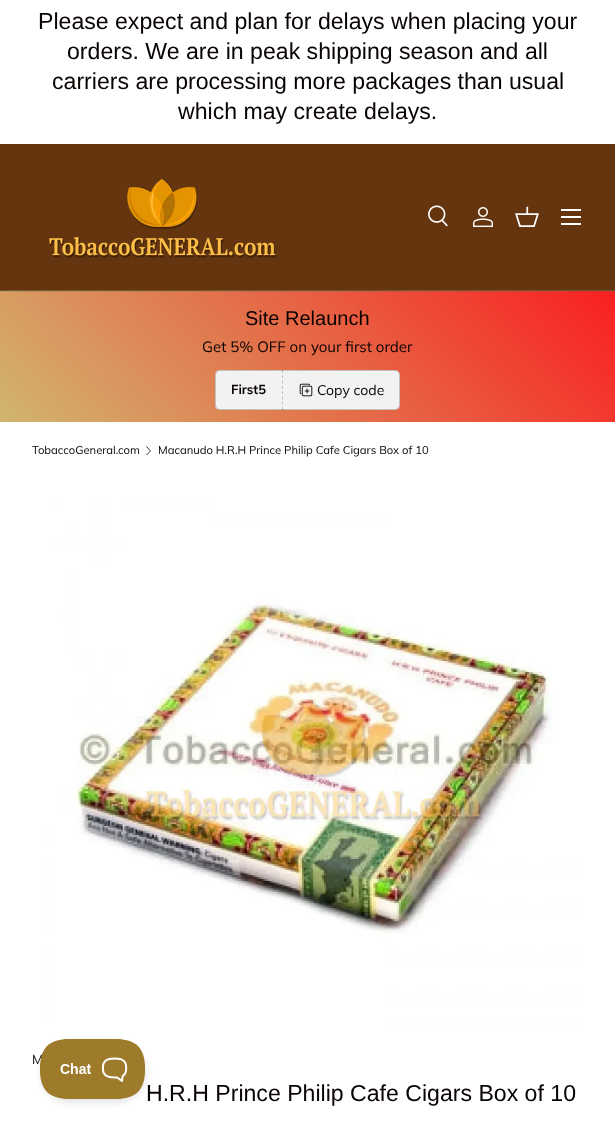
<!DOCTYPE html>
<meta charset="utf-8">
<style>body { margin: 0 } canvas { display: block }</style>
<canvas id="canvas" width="615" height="1139"></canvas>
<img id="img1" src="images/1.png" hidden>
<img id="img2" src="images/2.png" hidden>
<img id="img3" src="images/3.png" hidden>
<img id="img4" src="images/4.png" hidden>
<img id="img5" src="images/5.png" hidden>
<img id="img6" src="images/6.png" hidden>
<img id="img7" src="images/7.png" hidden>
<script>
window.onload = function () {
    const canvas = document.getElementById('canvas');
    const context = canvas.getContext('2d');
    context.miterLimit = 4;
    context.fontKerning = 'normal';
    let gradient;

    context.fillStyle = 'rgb(255, 255, 255)';
    context.fillRect(0, 0, 615, 1139);
    context.fillStyle = 'rgb(100, 53, 15)';
    context.fillRect(0, 144, 615, 146);
    context.fillStyle = 'rgb(123, 83, 51)';
    context.fillRect(0, 290, 615, 1);
    context.drawImage(document.getElementById('img1'), 49, 178, 228, 80);
    context.drawImage(document.getElementById('img2'), 428, 205, 20, 22);
    context.drawImage(document.getElementById('img3'), 473, 207, 20, 20);
    context.drawImage(document.getElementById('img4'), 515, 206, 24, 21);
    context.fillStyle = 'rgb(255, 255, 255)';
    context.fillRect(561, 209, 20, 2);
    context.fillRect(561, 223, 20, 2);
    context.fillRect(561, 216, 20, 2);
    gradient = context.createLinearGradient(116, 412, 499, 42);
    gradient.addColorStop(0, 'rgb(179, 155, 95)');
    gradient.addColorStop(1, 'rgb(213, 28, 28)');
    context.fillStyle = gradient;
    context.fillRect(0, 291, 615, 1);
    gradient = context.createLinearGradient(116, 542, 499, 172);
    gradient.addColorStop(0, 'rgb(209, 182, 111)');
    gradient.addColorStop(1, 'rgb(249, 32, 32)');
    context.fillStyle = gradient;
    context.fillRect(0, 292, 615, 130);
    context.fillStyle = 'rgb(242, 242, 242)';
    context.beginPath();
    context.roundRect(215, 370, 185, 40, 5);
    context.fill();
    context.beginPath();
    context.roundRect(215.5, 370.5, 184, 39, 4.5);
    context.strokeStyle = 'rgba(9, 3, 2, 0.2)';
    context.stroke();
    context.beginPath();
    context.moveTo(282.5, 370);
    context.lineTo(282.5, 410);
    context.setLineDash([3, 2.29]);
    context.stroke();
    context.drawImage(document.getElementById('img5'), 299, 383, 14, 14);
    context.beginPath();
    context.moveTo(146.5, 446.5);
    context.lineTo(150.5, 451);
    context.lineTo(146.5, 455);
    context.strokeStyle = 'rgb(9, 3, 2)';
    context.lineWidth = 0.8;
    context.setLineDash([]);
    context.stroke();
    context.drawImage(document.getElementById('img6'), 33, 480, 549, 549);
    context.fillStyle = 'rgba(0, 0, 0, 0.1)';
    context.filter = 'blur(3.5px)';
    context.beginPath();
    context.roundRect(40, 1043, 106, 60, 30);
    context.fill();
    context.filter = 'none';
    context.font = '23.1px Liberation Sans';
    context.fillStyle = 'rgb(9, 3, 2)';
    context.fillText('Please expect and plan for delays when placing your', 38, 29);
    context.fillText('orders. We are in peak shipping season and all', 67, 59);
    context.fillText('carriers are processing more packages than usual', 52, 89);
    context.fillText('which may create delays.', 178, 119);
    context.font = '20px Liberation Sans';
    context.fillText('Site Relaunch', 245, 325);
    context.font = '15px Muli';
    context.fillText('Get 5% OFF on your first order', 202, 352);
    context.font = 'bold 13px Muli';
    context.fillText('First5', 231, 394);
    context.font = '14px Muli';
    context.fillText('Copy code', 317, 395);
    context.font = '11.25px Muli';
    context.fillText('TobaccoGeneral.com', 32, 454);
    context.fillText('Macanudo H.R.H Prince Philip Cafe Cigars Box of 10', 158, 454);
    context.font = '13px Muli';
    context.fillText('M', 32, 1064);
    context.font = '23.1px Liberation Sans';
    context.fillText('H.R.H Prince Philip Cafe Cigars Box of 10', 146, 1101);
    context.drawImage(document.getElementById('img7'), 40, 1039, 105, 60);
};
</script>
